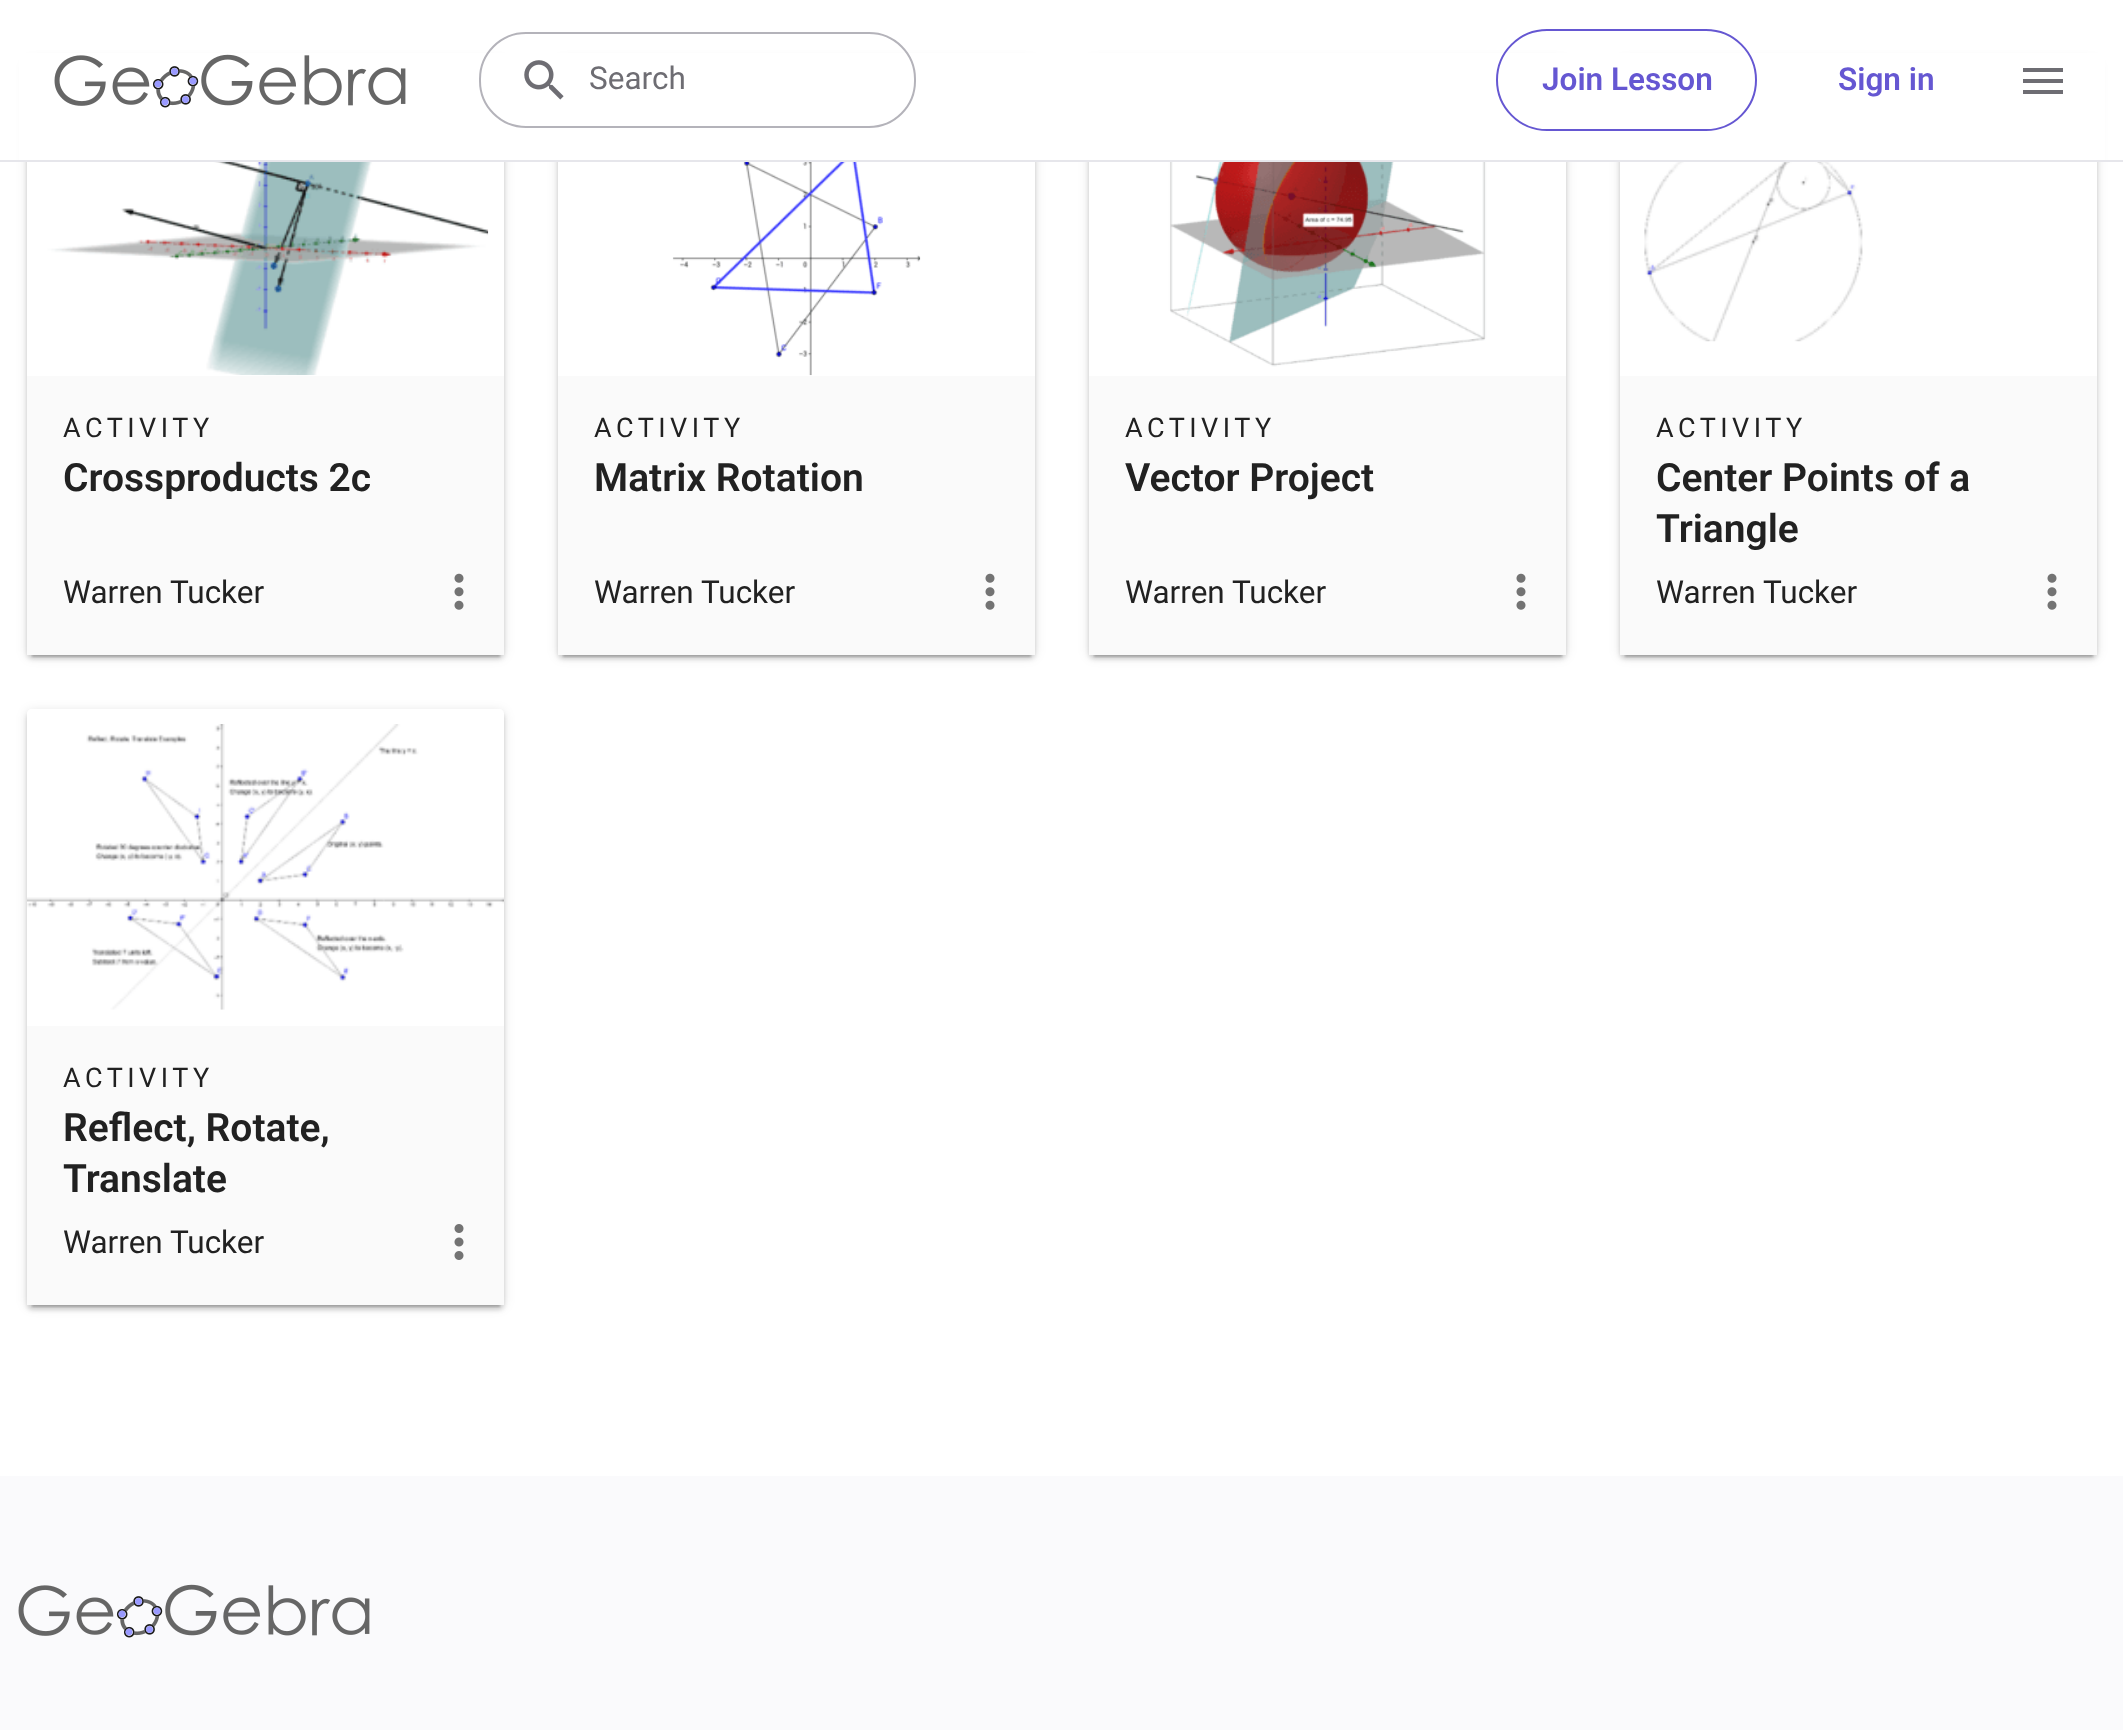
<!DOCTYPE html>
<meta charset="utf-8">
<style>body { margin: 0 } canvas { display: block }</style>
<canvas id="canvas" width="2123" height="1730"></canvas>
<img id="img1" src="images/1.png" hidden>
<img id="img2" src="images/2.png" hidden>
<img id="img3" src="images/3.png" hidden>
<img id="img4" src="images/4.png" hidden>
<img id="img5" src="images/5.png" hidden>
<img id="img6" src="images/6.png" hidden>
<img id="img7" src="images/7.png" hidden>
<img id="img8" src="images/8.png" hidden>
<img id="img9" src="images/9.png" hidden>
<img id="img10" src="images/10.png" hidden>
<script>
window.onload = function () {
    const canvas = document.getElementById('canvas');
    const context = canvas.getContext('2d');
    context.miterLimit = 4;
    context.fontKerning = 'normal';

    context.fillStyle = 'rgb(255, 255, 255)';
    context.fillRect(0, 0, 2123, 1730);
    context.save();
    context.beginPath();
    context.moveTo(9, 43);
    context.lineTo(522, 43);
    context.lineTo(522, 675);
    context.lineTo(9, 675);
    context.closePath();
    context.moveTo(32, 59);
    context.lineTo(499, 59);
    context.bezierCurveTo(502, 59, 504, 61, 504, 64);
    context.lineTo(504, 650);
    context.bezierCurveTo(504, 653, 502, 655, 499, 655);
    context.lineTo(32, 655);
    context.bezierCurveTo(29, 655, 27, 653, 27, 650);
    context.lineTo(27, 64);
    context.bezierCurveTo(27, 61, 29, 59, 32, 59);
    context.closePath();
    context.clip('evenodd');
    context.fillStyle = 'rgba(0, 0, 0, 0.12)';
    context.filter = 'blur(5.5px)';
    context.beginPath();
    context.roundRect(27, 61, 477, 596, 5);
    context.fill();
    context.filter = 'none';
    context.restore();
    context.save();
    context.beginPath();
    context.moveTo(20, 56);
    context.lineTo(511, 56);
    context.lineTo(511, 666);
    context.lineTo(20, 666);
    context.closePath();
    context.moveTo(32, 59);
    context.lineTo(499, 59);
    context.bezierCurveTo(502, 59, 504, 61, 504, 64);
    context.lineTo(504, 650);
    context.bezierCurveTo(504, 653, 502, 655, 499, 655);
    context.lineTo(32, 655);
    context.bezierCurveTo(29, 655, 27, 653, 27, 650);
    context.lineTo(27, 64);
    context.bezierCurveTo(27, 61, 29, 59, 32, 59);
    context.closePath();
    context.clip('evenodd');
    context.fillStyle = 'rgba(0, 0, 0, 0.14)';
    context.filter = 'blur(2px)';
    context.beginPath();
    context.roundRect(27, 63, 477, 596, 5);
    context.fill();
    context.filter = 'none';
    context.restore();
    context.save();
    context.beginPath();
    context.rect(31, 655, 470, 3);
    context.clip();
    context.fillStyle = 'rgba(0, 0, 0, 0.2)';
    context.filter = 'blur(1px)';
    context.beginPath();
    context.rect(32, 70, 468, 587);
    context.fill();
    context.filter = 'none';
    context.restore();
    context.save();
    context.beginPath();
    context.moveTo(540, 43);
    context.lineTo(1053, 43);
    context.lineTo(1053, 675);
    context.lineTo(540, 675);
    context.closePath();
    context.moveTo(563, 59);
    context.lineTo(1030, 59);
    context.bezierCurveTo(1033, 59, 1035, 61, 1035, 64);
    context.lineTo(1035, 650);
    context.bezierCurveTo(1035, 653, 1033, 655, 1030, 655);
    context.lineTo(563, 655);
    context.bezierCurveTo(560, 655, 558, 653, 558, 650);
    context.lineTo(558, 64);
    context.bezierCurveTo(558, 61, 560, 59, 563, 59);
    context.closePath();
    context.clip('evenodd');
    context.fillStyle = 'rgba(0, 0, 0, 0.12)';
    context.filter = 'blur(5.5px)';
    context.beginPath();
    context.roundRect(558, 61, 477, 596, 5);
    context.fill();
    context.filter = 'none';
    context.restore();
    context.save();
    context.beginPath();
    context.moveTo(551, 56);
    context.lineTo(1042, 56);
    context.lineTo(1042, 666);
    context.lineTo(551, 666);
    context.closePath();
    context.moveTo(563, 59);
    context.lineTo(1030, 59);
    context.bezierCurveTo(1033, 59, 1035, 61, 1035, 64);
    context.lineTo(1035, 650);
    context.bezierCurveTo(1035, 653, 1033, 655, 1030, 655);
    context.lineTo(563, 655);
    context.bezierCurveTo(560, 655, 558, 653, 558, 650);
    context.lineTo(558, 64);
    context.bezierCurveTo(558, 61, 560, 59, 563, 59);
    context.closePath();
    context.clip('evenodd');
    context.fillStyle = 'rgba(0, 0, 0, 0.14)';
    context.filter = 'blur(2px)';
    context.beginPath();
    context.roundRect(558, 63, 477, 596, 5);
    context.fill();
    context.filter = 'none';
    context.restore();
    context.save();
    context.beginPath();
    context.rect(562, 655, 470, 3);
    context.clip();
    context.fillStyle = 'rgba(0, 0, 0, 0.2)';
    context.filter = 'blur(1px)';
    context.beginPath();
    context.rect(563, 70, 468, 587);
    context.fill();
    context.filter = 'none';
    context.restore();
    context.save();
    context.beginPath();
    context.moveTo(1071, 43);
    context.lineTo(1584, 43);
    context.lineTo(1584, 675);
    context.lineTo(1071, 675);
    context.closePath();
    context.moveTo(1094, 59);
    context.lineTo(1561, 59);
    context.bezierCurveTo(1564, 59, 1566, 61, 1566, 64);
    context.lineTo(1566, 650);
    context.bezierCurveTo(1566, 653, 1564, 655, 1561, 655);
    context.lineTo(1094, 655);
    context.bezierCurveTo(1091, 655, 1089, 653, 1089, 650);
    context.lineTo(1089, 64);
    context.bezierCurveTo(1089, 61, 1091, 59, 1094, 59);
    context.closePath();
    context.clip('evenodd');
    context.fillStyle = 'rgba(0, 0, 0, 0.12)';
    context.filter = 'blur(5.5px)';
    context.beginPath();
    context.roundRect(1089, 61, 477, 596, 5);
    context.fill();
    context.filter = 'none';
    context.restore();
    context.save();
    context.beginPath();
    context.moveTo(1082, 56);
    context.lineTo(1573, 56);
    context.lineTo(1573, 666);
    context.lineTo(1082, 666);
    context.closePath();
    context.moveTo(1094, 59);
    context.lineTo(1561, 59);
    context.bezierCurveTo(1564, 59, 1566, 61, 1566, 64);
    context.lineTo(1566, 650);
    context.bezierCurveTo(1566, 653, 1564, 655, 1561, 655);
    context.lineTo(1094, 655);
    context.bezierCurveTo(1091, 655, 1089, 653, 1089, 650);
    context.lineTo(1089, 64);
    context.bezierCurveTo(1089, 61, 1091, 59, 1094, 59);
    context.closePath();
    context.clip('evenodd');
    context.fillStyle = 'rgba(0, 0, 0, 0.14)';
    context.filter = 'blur(2px)';
    context.beginPath();
    context.roundRect(1089, 63, 477, 596, 5);
    context.fill();
    context.filter = 'none';
    context.restore();
    context.save();
    context.beginPath();
    context.rect(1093, 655, 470, 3);
    context.clip();
    context.fillStyle = 'rgba(0, 0, 0, 0.2)';
    context.filter = 'blur(1px)';
    context.beginPath();
    context.rect(1094, 70, 468, 587);
    context.fill();
    context.filter = 'none';
    context.restore();
    context.save();
    context.beginPath();
    context.moveTo(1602, 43);
    context.lineTo(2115, 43);
    context.lineTo(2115, 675);
    context.lineTo(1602, 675);
    context.closePath();
    context.moveTo(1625, 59);
    context.lineTo(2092, 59);
    context.bezierCurveTo(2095, 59, 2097, 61, 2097, 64);
    context.lineTo(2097, 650);
    context.bezierCurveTo(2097, 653, 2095, 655, 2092, 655);
    context.lineTo(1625, 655);
    context.bezierCurveTo(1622, 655, 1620, 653, 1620, 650);
    context.lineTo(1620, 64);
    context.bezierCurveTo(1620, 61, 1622, 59, 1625, 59);
    context.closePath();
    context.clip('evenodd');
    context.fillStyle = 'rgba(0, 0, 0, 0.12)';
    context.filter = 'blur(5.5px)';
    context.beginPath();
    context.roundRect(1620, 61, 477, 596, 5);
    context.fill();
    context.filter = 'none';
    context.restore();
    context.save();
    context.beginPath();
    context.moveTo(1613, 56);
    context.lineTo(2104, 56);
    context.lineTo(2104, 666);
    context.lineTo(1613, 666);
    context.closePath();
    context.moveTo(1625, 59);
    context.lineTo(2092, 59);
    context.bezierCurveTo(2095, 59, 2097, 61, 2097, 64);
    context.lineTo(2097, 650);
    context.bezierCurveTo(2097, 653, 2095, 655, 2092, 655);
    context.lineTo(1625, 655);
    context.bezierCurveTo(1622, 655, 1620, 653, 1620, 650);
    context.lineTo(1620, 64);
    context.bezierCurveTo(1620, 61, 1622, 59, 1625, 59);
    context.closePath();
    context.clip('evenodd');
    context.fillStyle = 'rgba(0, 0, 0, 0.14)';
    context.filter = 'blur(2px)';
    context.beginPath();
    context.roundRect(1620, 63, 477, 596, 5);
    context.fill();
    context.filter = 'none';
    context.restore();
    context.save();
    context.beginPath();
    context.rect(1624, 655, 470, 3);
    context.clip();
    context.fillStyle = 'rgba(0, 0, 0, 0.2)';
    context.filter = 'blur(1px)';
    context.beginPath();
    context.rect(1625, 70, 468, 587);
    context.fill();
    context.filter = 'none';
    context.restore();
    context.fillRect(19, 53, 2086, 107);
    context.fillStyle = 'rgb(230, 230, 235)';
    context.fillRect(0, 160, 2123, 2);
    context.drawImage(document.getElementById('img1'), 54, 54, 352, 54);
    context.beginPath();
    context.roundRect(480, 33, 435, 94, 46);
    context.strokeStyle = 'rgb(180, 179, 186)';
    context.lineWidth = 2;
    context.stroke();
    context.drawImage(document.getElementById('img2'), 524, 60, 40, 40);
    context.beginPath();
    context.roundRect(1497, 30, 259, 100, 50);
    context.strokeStyle = 'rgb(101, 87, 210)';
    context.stroke();
    context.fillStyle = 'rgb(110, 109, 115)';
    context.beginPath();
    context.moveTo(2023, 68);
    context.lineTo(2063, 68);
    context.lineTo(2063, 72);
    context.lineTo(2023, 72);
    context.lineTo(2023, 68);
    context.moveTo(2023, 79);
    context.lineTo(2063, 79);
    context.lineTo(2063, 83);
    context.lineTo(2023, 83);
    context.lineTo(2023, 79);
    context.moveTo(2023, 90);
    context.lineTo(2063, 90);
    context.lineTo(2063, 94);
    context.lineTo(2023, 94);
    context.closePath();
    context.fill();
    context.drawImage(document.getElementById('img3'), 42, 162, 447, 214);
    context.fillStyle = 'rgb(250, 250, 250)';
    context.fillRect(27, 376, 477, 279);
    context.drawImage(document.getElementById('img4'), 454, 573, 10, 37);
    context.drawImage(document.getElementById('img5'), 672, 162, 249, 214);
    context.fillRect(558, 376, 477, 279);
    context.drawImage(document.getElementById('img4'), 985, 573, 10, 37);
    context.drawImage(document.getElementById('img6'), 1164, 162, 327, 205);
    context.fillRect(1089, 376, 477, 279);
    context.drawImage(document.getElementById('img4'), 1516, 573, 10, 37);
    context.drawImage(document.getElementById('img7'), 1644, 162, 247, 180);
    context.fillRect(1620, 376, 477, 279);
    context.drawImage(document.getElementById('img4'), 2047, 573, 10, 37);
    context.save();
    context.beginPath();
    context.moveTo(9, 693);
    context.lineTo(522, 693);
    context.lineTo(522, 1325);
    context.lineTo(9, 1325);
    context.closePath();
    context.moveTo(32, 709);
    context.lineTo(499, 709);
    context.bezierCurveTo(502, 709, 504, 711, 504, 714);
    context.lineTo(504, 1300);
    context.bezierCurveTo(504, 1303, 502, 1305, 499, 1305);
    context.lineTo(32, 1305);
    context.bezierCurveTo(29, 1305, 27, 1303, 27, 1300);
    context.lineTo(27, 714);
    context.bezierCurveTo(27, 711, 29, 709, 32, 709);
    context.closePath();
    context.clip('evenodd');
    context.fillStyle = 'rgba(0, 0, 0, 0.12)';
    context.filter = 'blur(5.5px)';
    context.beginPath();
    context.roundRect(27, 711, 477, 596, 5);
    context.fill();
    context.filter = 'none';
    context.restore();
    context.save();
    context.beginPath();
    context.moveTo(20, 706);
    context.lineTo(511, 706);
    context.lineTo(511, 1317);
    context.lineTo(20, 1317);
    context.closePath();
    context.moveTo(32, 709);
    context.lineTo(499, 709);
    context.bezierCurveTo(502, 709, 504, 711, 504, 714);
    context.lineTo(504, 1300);
    context.bezierCurveTo(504, 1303, 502, 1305, 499, 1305);
    context.lineTo(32, 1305);
    context.bezierCurveTo(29, 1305, 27, 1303, 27, 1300);
    context.lineTo(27, 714);
    context.bezierCurveTo(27, 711, 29, 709, 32, 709);
    context.closePath();
    context.clip('evenodd');
    context.fillStyle = 'rgba(0, 0, 0, 0.14)';
    context.filter = 'blur(2px)';
    context.beginPath();
    context.roundRect(27, 713, 477, 597, 5);
    context.fill();
    context.filter = 'none';
    context.restore();
    context.save();
    context.beginPath();
    context.rect(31, 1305, 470, 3);
    context.clip();
    context.fillStyle = 'rgba(0, 0, 0, 0.2)';
    context.filter = 'blur(1px)';
    context.beginPath();
    context.rect(32, 720, 468, 587);
    context.fill();
    context.filter = 'none';
    context.restore();
    context.drawImage(document.getElementById('img8'), 27, 724, 477, 286);
    context.fillRect(27, 1026, 477, 279);
    context.drawImage(document.getElementById('img9'), 454, 1224, 10, 36);
    context.fillStyle = 'rgb(250, 250, 252)';
    context.fillRect(0, 1476, 2123, 254);
    context.drawImage(document.getElementById('img10'), 18, 1584, 352, 54);
    context.font = '31.5px Roboto';
    context.fillStyle = 'rgb(110, 109, 115)';
    context.fillText('Search', 589, 89);
    context.font = '600 31.5px Roboto';
    context.fillStyle = 'rgb(101, 87, 210)';
    context.fillText('Join Lesson', 1542, 90);
    context.fillText('Sign in', 1838, 90);
    context.letterSpacing = '4.5px';
    context.font = '27px Roboto';
    context.fillStyle = 'rgb(33, 33, 33)';
    context.fillText('ACTIVITY', 63, 437);
    context.letterSpacing = '0px';
    context.font = '600 39px Roboto';
    context.fillText('Crossproducts 2c', 63, 491);
    context.font = '31.5px Roboto';
    context.fillText('Warren Tucker', 63, 603);
    context.letterSpacing = '4.5px';
    context.font = '27px Roboto';
    context.fillText('ACTIVITY', 594, 437);
    context.letterSpacing = '0px';
    context.font = '600 39px Roboto';
    context.fillText('Matrix Rotation', 594, 491);
    context.font = '31.5px Roboto';
    context.fillText('Warren Tucker', 594, 603);
    context.letterSpacing = '4.5px';
    context.font = '27px Roboto';
    context.fillText('ACTIVITY', 1125, 437);
    context.letterSpacing = '0px';
    context.font = '600 39px Roboto';
    context.fillText('Vector Project', 1125, 491);
    context.font = '31.5px Roboto';
    context.fillText('Warren Tucker', 1125, 603);
    context.letterSpacing = '4.5px';
    context.font = '27px Roboto';
    context.fillText('ACTIVITY', 1656, 437);
    context.letterSpacing = '0px';
    context.font = '600 39px Roboto';
    context.fillText('Center Points of a', 1656, 491);
    context.fillText('Triangle', 1656, 542);
    context.font = '31.5px Roboto';
    context.fillText('Warren Tucker', 1656, 603);
    context.letterSpacing = '4.5px';
    context.font = '27px Roboto';
    context.fillText('ACTIVITY', 63, 1087);
    context.letterSpacing = '0px';
    context.font = '600 39px Roboto';
    context.fillText('Reflect, Rotate,', 63, 1141);
    context.fillText('Translate', 63, 1192);
    context.font = '31.5px Roboto';
    context.fillText('Warren Tucker', 63, 1253);
};
</script>
